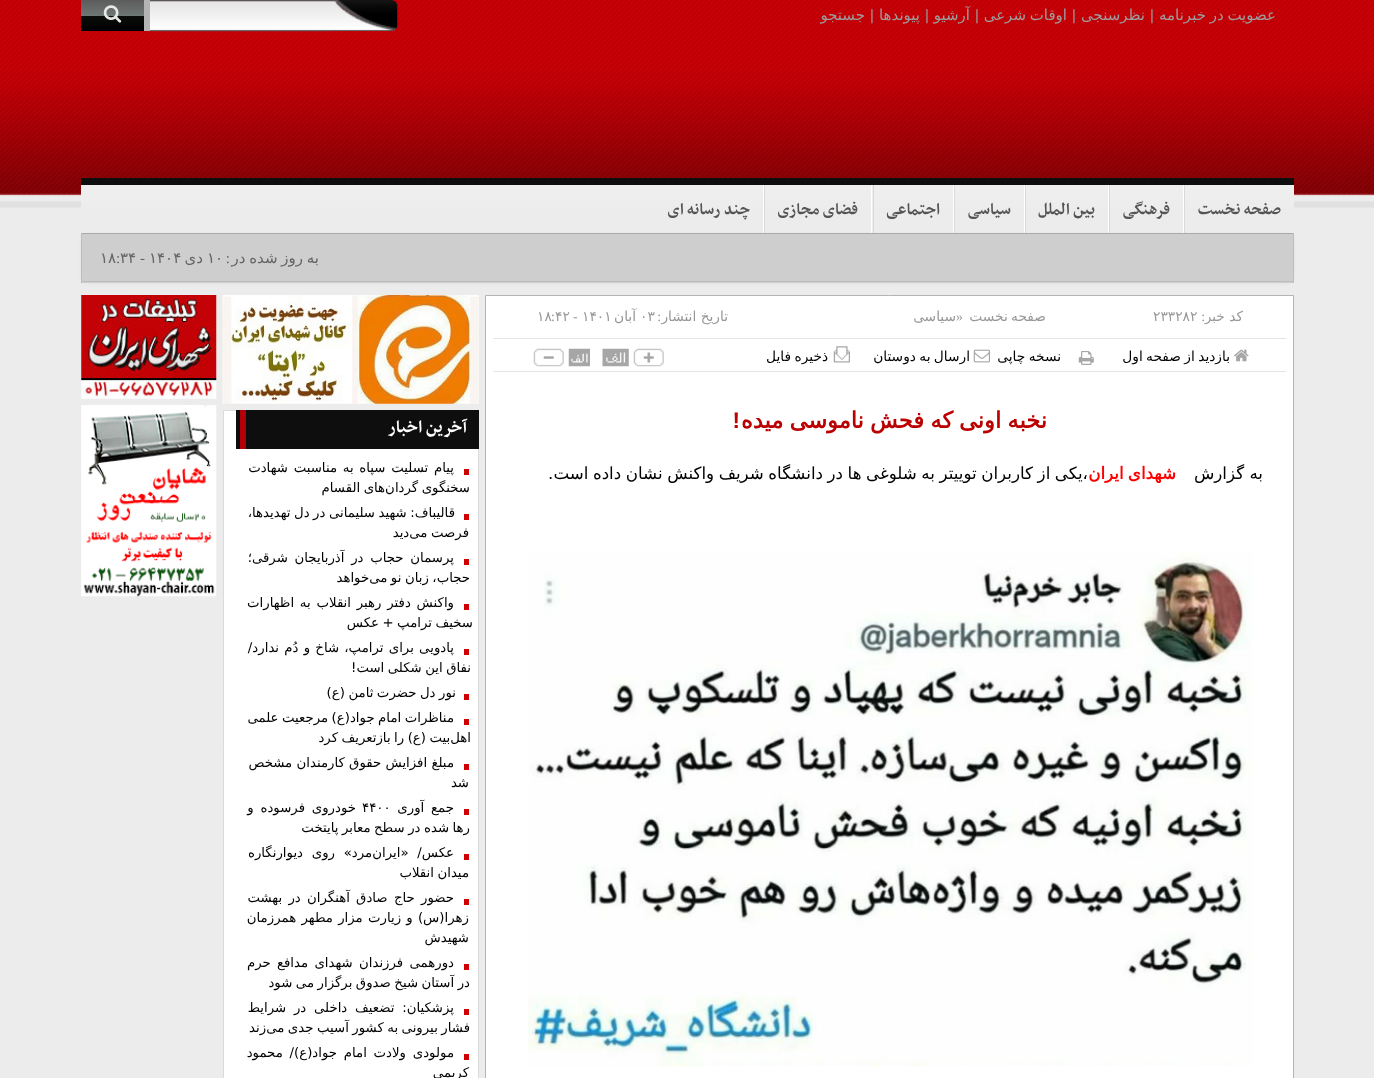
<!DOCTYPE html>
<meta charset="utf-8">
<style>body { margin: 0 } canvas { display: block }</style>
<canvas id="canvas" width="1374" height="1078"></canvas>
<img id="img1" src="images/1.png" hidden>
<img id="img2" src="images/2.png" hidden>
<img id="img3" src="images/3.png" hidden>
<img id="img4" src="images/4.png" hidden>
<img id="img5" src="images/5.png" hidden>
<img id="img6" src="images/6.png" hidden>
<img id="img7" src="images/7.png" hidden>
<img id="img8" src="images/8.png" hidden>
<img id="img9" src="images/9.png" hidden>
<img id="img10" src="images/10.png" hidden>
<img id="img11" src="images/11.png" hidden>
<img id="img12" src="images/12.png" hidden>
<img id="img13" src="images/13.png" hidden>
<img id="img14" src="images/14.png" hidden>
<script>
window.onload = function () {
    const canvas = document.getElementById('canvas');
    const context = canvas.getContext('2d');
    context.miterLimit = 4;
    context.fontKerning = 'normal';
    let gradient;

    context.fillStyle = 'rgb(236, 236, 236)';
    context.fillRect(0, 0, 1374, 1078);
    context.drawImage(document.getElementById('img1'), 0, 0, 1374, 208);
    context.drawImage(document.getElementById('img2'), 330, 0, 68, 32);
    context.drawImage(document.getElementById('img3'), 150, 0, 180, 32);
    gradient = context.createLinearGradient(113, 0, 113, 31);
    gradient.addColorStop(0, 'rgb(92, 92, 92)');
    gradient.addColorStop(0.5, 'rgb(110, 119, 116)');
    gradient.addColorStop(0.51, 'rgb(10, 14, 10)');
    gradient.addColorStop(1, 'rgb(0, 0, 0)');
    context.fillStyle = gradient;
    context.fillRect(81, 0, 63, 31);
    context.fillStyle = 'rgb(181, 180, 180)';
    context.fillRect(144, 0, 6, 31);
    context.drawImage(document.getElementById('img4'), 103, 5, 19, 18);
    gradient = context.createLinearGradient(688, 185, 688, 233);
    gradient.addColorStop(0, 'rgb(239, 239, 239)');
    gradient.addColorStop(1, 'rgb(234, 234, 234)');
    context.fillStyle = gradient;
    context.fillRect(81, 185, 1213, 23);
    context.fillStyle = 'rgb(14, 14, 14)';
    context.fillRect(81, 178, 1213, 7);
    context.fillStyle = 'rgb(217, 217, 217)';
    context.fillRect(1184, 185, 1, 48);
    context.fillStyle = 'rgb(255, 255, 255)';
    context.fillRect(1183, 185, 1, 48);
    context.fillStyle = 'rgb(217, 217, 217)';
    context.fillRect(1109, 185, 1, 48);
    context.fillStyle = 'rgb(255, 255, 255)';
    context.fillRect(1108, 185, 1, 48);
    context.fillStyle = 'rgb(217, 217, 217)';
    context.fillRect(1025, 185, 1, 48);
    context.fillStyle = 'rgb(255, 255, 255)';
    context.fillRect(1024, 185, 1, 48);
    context.fillStyle = 'rgb(217, 217, 217)';
    context.fillRect(954, 185, 1, 48);
    context.fillStyle = 'rgb(255, 255, 255)';
    context.fillRect(953, 185, 1, 48);
    context.fillStyle = 'rgb(217, 217, 217)';
    context.fillRect(873, 185, 1, 48);
    context.fillStyle = 'rgb(255, 255, 255)';
    context.fillRect(871, 185, 1, 48);
    context.fillStyle = 'rgb(217, 217, 217)';
    context.fillRect(764, 185, 1, 48);
    context.fillStyle = 'rgb(255, 255, 255)';
    context.fillRect(763, 185, 1, 48);
    context.fillStyle = 'rgb(187, 124, 194)';
    context.filter = 'blur(3px)';
    context.beginPath();
    context.rect(86, 239, 1203, 40);
    context.fill();
    context.filter = 'none';
    context.fillStyle = 'rgb(206, 206, 206)';
    context.fillRect(82, 234, 1211, 49);
    context.fillStyle = 'rgb(170, 170, 169)';
    context.fillRect(81, 233, 1213, 1);
    context.fillStyle = 'rgb(189, 189, 189)';
    context.fillRect(1293, 233, 1, 50);
    context.fillRect(81, 281, 1213, 1);
    context.fillRect(81, 233, 1, 50);
    context.fillStyle = 'rgb(255, 255, 255)';
    context.beginPath();
    context.rect(485.5, 295.5, 808, 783);
    context.fill();
    context.strokeStyle = 'rgb(180, 180, 180)';
    context.stroke();
    context.fillStyle = 'rgb(228, 228, 228)';
    context.fillRect(493, 338, 793, 1);
    context.fillRect(493, 371, 793, 1);
    context.drawImage(document.getElementById('img5'), 1234, 349, 15, 13);
    context.drawImage(document.getElementById('img6'), 1078, 351, 16, 14);
    context.drawImage(document.getElementById('img7'), 973, 349, 17, 14);
    context.drawImage(document.getElementById('img8'), 833, 346, 17, 17);
    context.drawImage(document.getElementById('img9'), 602, 348, 62, 19);
    context.drawImage(document.getElementById('img10'), 533, 348, 57, 19);
    context.drawImage(document.getElementById('img11'), 528, 551, 725, 516);
    context.drawImage(document.getElementById('img12'), 81, 295, 136, 104);
    context.drawImage(document.getElementById('img13'), 81, 405, 136, 192);
    context.drawImage(document.getElementById('img14'), 222, 295, 257, 109);
    context.fillStyle = 'rgb(255, 255, 255)';
    context.beginPath();
    context.rect(223.5, 410.5, 255, 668);
    context.fill();
    context.strokeStyle = 'rgb(219, 219, 219)';
    context.stroke();
    context.fillStyle = 'rgb(14, 14, 14)';
    context.fillRect(236, 410, 243, 39);
    context.fillStyle = 'rgb(177, 0, 7)';
    context.fillRect(240, 410, 6, 39);
    context.fillStyle = 'rgb(209, 0, 0)';
    context.fillRect(464, 469, 5, 6);
    context.fillRect(464, 514, 5, 6);
    context.fillRect(464, 559, 5, 6);
    context.fillRect(464, 604, 5, 6);
    context.fillRect(464, 649, 5, 6);
    context.fillRect(464, 694, 5, 6);
    context.fillRect(464, 719, 5, 6);
    context.fillRect(464, 764, 5, 6);
    context.fillRect(464, 809, 5, 6);
    context.fillRect(464, 854, 5, 6);
    context.fillRect(464, 899, 5, 6);
    context.fillRect(464, 964, 5, 6);
    context.fillRect(464, 1009, 5, 6);
    context.fillRect(464, 1054, 5, 6);
    context.wordSpacing = '-1px';
    context.direction = 'rtl';
    context.font = '15px DejaVu Sans';
    context.fillStyle = 'rgb(157, 157, 157)';
    context.fillText('عضویت در خبرنامه', 1276, 20);
    context.wordSpacing = '0px';
    context.direction = 'ltr';
    context.font = '15px Liberation Sans';
    context.fillText('|', 1150, 20);
    context.direction = 'rtl';
    context.font = '15px DejaVu Sans';
    context.fillText('نظرسنجی', 1145, 20);
    context.direction = 'ltr';
    context.font = '15px Liberation Sans';
    context.fillText('|', 1072, 20);
    context.wordSpacing = '-1px';
    context.direction = 'rtl';
    context.font = '15px DejaVu Sans';
    context.fillText('اوقات شرعی', 1067, 20);
    context.wordSpacing = '0px';
    context.direction = 'ltr';
    context.font = '15px Liberation Sans';
    context.fillText('|', 975, 20);
    context.direction = 'rtl';
    context.font = '15px DejaVu Sans';
    context.fillText('آرشیو', 970, 20);
    context.direction = 'ltr';
    context.font = '15px Liberation Sans';
    context.fillText('|', 925, 20);
    context.direction = 'rtl';
    context.font = '15px DejaVu Sans';
    context.fillText('پیوندها', 920, 20);
    context.direction = 'ltr';
    context.font = '15px Liberation Sans';
    context.fillText('|', 870, 20);
    context.direction = 'rtl';
    context.font = '15px DejaVu Sans';
    context.fillText('جستجو', 865, 20);
    context.font = 'bold 18.75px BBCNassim';
    context.fillStyle = 'rgb(84, 84, 84)';
    context.fillText('صفحه نخست', 1281, 214);
    context.fillText('فرهنگی', 1170, 214);
    context.fillText('بین الملل', 1095, 214);
    context.fillText('سیاسی', 1011, 214);
    context.fillText('اجتماعی', 940, 214);
    context.fillText('فضای مجازی', 858, 214);
    context.fillText('چند رسانه ای', 750, 214);
    context.font = '15px Liberation Serif';
    context.fillStyle = 'rgb(100, 100, 100)';
    context.fillText(':', 230, 263);
    context.wordSpacing = '-1px';
    context.font = '15px DejaVu Sans';
    context.fillText('به روز شده در', 319, 263);
    context.wordSpacing = '0px';
    context.direction = 'ltr';
    context.fillText('۱۰', 207, 263);
    context.direction = 'rtl';
    context.fillText('دی', 203, 263);
    context.direction = 'ltr';
    context.fillText('۱۴۰۴', 149, 263);
    context.font = '15px Liberation Serif';
    context.fillText('-', 140, 263);
    context.font = '15px DejaVu Sans';
    context.fillText('۳۴', 120, 263);
    context.font = '15px Liberation Serif';
    context.fillText(':', 116, 263);
    context.font = '15px DejaVu Sans';
    context.fillText('۱۸', 100, 263);
    context.direction = 'rtl';
    context.font = '13.75px DejaVu Sans';
    context.fillStyle = 'rgb(151, 151, 151)';
    context.fillText('کد خبر', 1243, 321);
    context.font = '13.75px Liberation Serif';
    context.fillText(':', 1205, 321);
    context.direction = 'ltr';
    context.font = '13.75px DejaVu Sans';
    context.fillText('۲۳۳۲۸۲', 1153, 321);
    context.wordSpacing = '-1px';
    context.direction = 'rtl';
    context.fillText('صفحه نخست', 1046, 321);
    context.wordSpacing = '0px';
    context.direction = 'ltr';
    context.font = '13.75px Liberation Serif';
    context.fillText('»', 956, 321);
    context.direction = 'rtl';
    context.font = '13.75px DejaVu Sans';
    context.fillText('سیاسی', 956, 321);
    context.font = '13.75px Liberation Serif';
    context.fillText(':', 661, 321);
    context.font = '13.75px DejaVu Sans';
    context.fillText('تاریخ انتشار', 728, 321);
    context.direction = 'ltr';
    context.fillText('۰۳', 640, 321);
    context.direction = 'rtl';
    context.fillText('آبان', 636, 321);
    context.direction = 'ltr';
    context.fillText('۱۴۰۱', 582, 321);
    context.font = '13.75px Liberation Serif';
    context.fillText('-', 573, 321);
    context.font = '13.75px DejaVu Sans';
    context.fillText('۴۲', 555, 321);
    context.font = '13.75px Liberation Serif';
    context.fillText(':', 551, 321);
    context.font = '13.75px DejaVu Sans';
    context.fillText('۱۸', 537, 321);
    context.wordSpacing = '-1px';
    context.direction = 'rtl';
    context.fillStyle = 'rgb(0, 0, 0)';
    context.fillText('بازدید از صفحه اول', 1230, 361);
    context.fillText('نسخه چاپی', 1061, 361);
    context.fillText('ارسال به دوستان', 970, 361);
    context.fillText('ذخیره فایل', 828, 361);
    context.font = 'bold 22.5px DejaVu Sans';
    context.fillStyle = 'rgb(187, 0, 2)';
    context.fillText('نخبه اونی که فحش ناموسی میده', 1047, 428);
    context.wordSpacing = '0px';
    context.font = 'bold 22.5px Liberation Sans';
    context.fillText('!', 740, 428);
    context.font = '16.7px DejaVu Sans';
    context.fillStyle = 'rgb(0, 0, 0)';
    context.fillText('به گزارش', 1263, 479);
    context.wordSpacing = '-1px';
    context.font = 'bold 16.7px DejaVu Sans';
    context.fillStyle = 'rgb(255, 0, 0)';
    context.fillText('شهدای ایران', 1176, 479);
    context.wordSpacing = '-0.75px';
    context.font = '16.7px DejaVu Sans';
    context.fillStyle = 'rgb(0, 0, 0)';
    context.fillText('،یکی از کاربران توییتر به شلوغی ها در دانشگاه شریف واکنش نشان داده است.', 1088, 479);
    context.wordSpacing = '0px';
    context.font = 'bold 20px BBCNassim';
    context.fillStyle = 'rgb(255, 255, 255)';
    context.fillText('آخرین اخبار', 467, 432);
    context.wordSpacing = '1.5px';
    context.font = '13.3px DejaVu Sans';
    context.fillStyle = 'rgb(0, 0, 0)';
    context.fillText('پیام تسلیت سپاه به مناسبت شهادت', 454, 472);
    context.wordSpacing = '-0.75px';
    context.fillText('سخنگوی گردان‌های القسام', 470, 492);
    context.fillText('قالیباف: شهید سلیمانی در دل تهدیدها،', 455, 517);
    context.fillText('فرصت می‌دید', 469, 537);
    context.wordSpacing = '2.5px';
    context.fillText('پرسمان حجاب در آذربایجان شرقی؛', 454, 562);
    context.wordSpacing = '-0.75px';
    context.fillText('حجاب، زبان نو می‌خواهد', 470, 582);
    context.wordSpacing = '1.5px';
    context.fillText('واکنش دفتر رهبر انقلاب به اظهارات', 454, 607);
    context.wordSpacing = '-0.75px';
    context.fillText('سخیف ترامپ + عکس', 473, 627);
    context.wordSpacing = '1px';
    context.fillText('پادویی برای ترامپ، شاخ و دُم ندارد/', 454, 652);
    context.wordSpacing = '-0.75px';
    context.fillText('نفاق این شکلی است!', 471, 672);
    context.fillText('نور دل حضرت ثامن (ع)', 456, 697);
    context.fillText('مناظرات امام جواد(ع) مرجعیت علمی', 454, 722);
    context.fillText('اهل‌بیت (ع) را بازتعریف کرد', 471, 742);
    context.wordSpacing = '0px';
    context.fillText('مبلغ افزایش حقوق کارمندان مشخص', 454, 767);
    context.fillText('شد', 469, 787);
    context.wordSpacing = '2.5px';
    context.fillText('جمع آوری', 454, 812);
    context.wordSpacing = '0px';
    context.direction = 'ltr';
    context.fillText('۴۴۰۰', 362, 812);
    context.wordSpacing = '2.5px';
    context.direction = 'rtl';
    context.fillText('خودروی فرسوده و', 356, 812);
    context.wordSpacing = '-0.75px';
    context.fillText('رها شده در سطح معابر پایتخت', 470, 832);
    context.wordSpacing = '4.5px';
    context.fillText('عکس/ «ایران‌مرد» روی دیوارنگاره', 454, 857);
    context.wordSpacing = '-0.75px';
    context.fillText('میدان انقلاب', 469, 877);
    context.wordSpacing = '2px';
    context.fillText('حضور حاج صادق آهنگران در بهشت', 454, 902);
    context.wordSpacing = '1px';
    context.fillText('زهرا(س) و زیارت مزار مطهر همرزمان', 469, 922);
    context.wordSpacing = '0px';
    context.fillText('شهیدش', 469, 942);
    context.wordSpacing = '2px';
    context.fillText('دورهمی فرزندان شهدای مدافع حرم', 454, 967);
    context.wordSpacing = '-0.75px';
    context.fillText('در آستان شیخ صدوق برگزار می شود', 470, 987);
    context.wordSpacing = '3.5px';
    context.fillText('پزشکیان: تضعیف داخلی در شرایط', 454, 1012);
    context.wordSpacing = '-0.75px';
    context.fillText('فشار بیرونی به کشور آسیب جدی می‌زند', 470, 1032);
    context.wordSpacing = '2.5px';
    context.fillText('مولودی ولادت امام جواد(ع)/ محمود', 454, 1057);
    context.wordSpacing = '0px';
    context.fillText('کریمی', 469, 1077);
};
</script>
